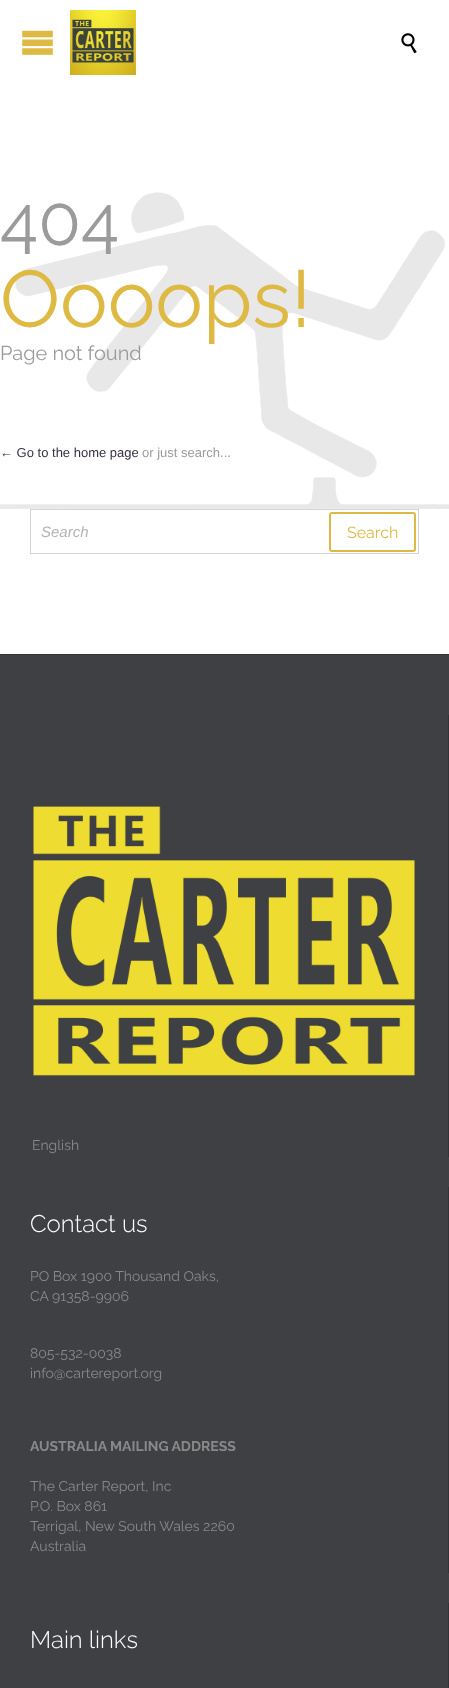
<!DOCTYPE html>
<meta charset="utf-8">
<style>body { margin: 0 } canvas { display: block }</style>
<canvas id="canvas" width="449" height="1688"></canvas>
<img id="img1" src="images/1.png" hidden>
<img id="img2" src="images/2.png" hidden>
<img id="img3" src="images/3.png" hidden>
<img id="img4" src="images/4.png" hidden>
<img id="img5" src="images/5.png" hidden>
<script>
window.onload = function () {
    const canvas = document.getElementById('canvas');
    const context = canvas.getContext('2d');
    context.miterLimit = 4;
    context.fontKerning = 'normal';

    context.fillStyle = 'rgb(255, 255, 255)';
    context.fillRect(0, 0, 449, 1688);
    context.drawImage(document.getElementById('img1'), 22, 30, 31, 25);
    context.drawImage(document.getElementById('img2'), 70, 10, 66, 65);
    context.drawImage(document.getElementById('img3'), 401, 33, 16, 21);
    context.drawImage(document.getElementById('img4'), 0, 192, 449, 317);
    context.strokeStyle = 'rgb(212, 212, 212)';
    context.strokeRect(30.5, 509.5, 388, 44);
    context.beginPath();
    context.roundRect(330, 513, 85, 38, 2);
    context.strokeStyle = 'rgb(222, 185, 67)';
    context.lineWidth = 2;
    context.stroke();
    context.fillStyle = 'rgb(62, 64, 67)';
    context.fillRect(0, 655, 449, 1033);
    context.fillStyle = 'rgb(50, 51, 54)';
    context.fillRect(0, 654, 449, 1);
    context.fillRect(448, 715, 1, 442);
    context.drawImage(document.getElementById('img5'), 33, 806, 382, 270);
    context.fillRect(448, 1187, 1, 386);
    context.fillRect(448, 1603, 1, 85);
    context.font = '70px Raleway';
    context.fillStyle = 'rgb(155, 155, 155)';
    context.fillText('404', 0, 245);
    context.font = '80px Raleway';
    context.fillStyle = 'rgb(222, 185, 67)';
    context.fillText('Oooops!', 0, 327);
    context.font = '20px Raleway';
    context.fillStyle = 'rgb(155, 155, 155)';
    context.fillText('Page not found', 0, 360);
    context.font = '13px Liberation Sans';
    context.fillStyle = 'rgb(57, 48, 68)';
    context.fillText('← Go to the home page', 0, 457);
    context.fillStyle = 'rgb(155, 155, 155)';
    context.fillText('or just search...', 142, 457);
    context.font = 'italic 15px Liberation Sans';
    context.fillStyle = 'rgb(179, 179, 179)';
    context.fillText('Search', 41, 537);
    context.font = '16px Raleway';
    context.fillStyle = 'rgb(222, 185, 67)';
    context.fillText('Search', 347, 538);
    context.font = '14px Raleway';
    context.fillStyle = 'rgb(137, 137, 137)';
    context.fillText('English', 32, 1150);
    context.font = '300 24px Raleway';
    context.fillStyle = 'rgb(255, 255, 255)';
    context.fillText('Contact us', 30, 1232);
    context.font = '14px Raleway';
    context.fillStyle = 'rgb(137, 137, 137)';
    context.fillText('PO Box 1900 Thousand Oaks,', 30, 1281);
    context.fillText('CA 91358-9906', 30, 1301);
    context.fillText('805-532-0038', 30, 1358);
    context.fillText('info@cartereport.org', 30, 1378);
    context.font = 'bold 14px Raleway';
    context.fillText('AUSTRALIA MAILING ADDRESS', 30, 1451);
    context.font = '14px Raleway';
    context.fillText('The Carter Report, Inc', 30, 1491);
    context.fillText('P.O. Box 861', 30, 1511);
    context.fillText('Terrigal, New South Wales 2260', 30, 1531);
    context.fillText('Australia', 30, 1551);
    context.font = '300 24px Raleway';
    context.fillStyle = 'rgb(255, 255, 255)';
    context.fillText('Main links', 30, 1648);
};
</script>
